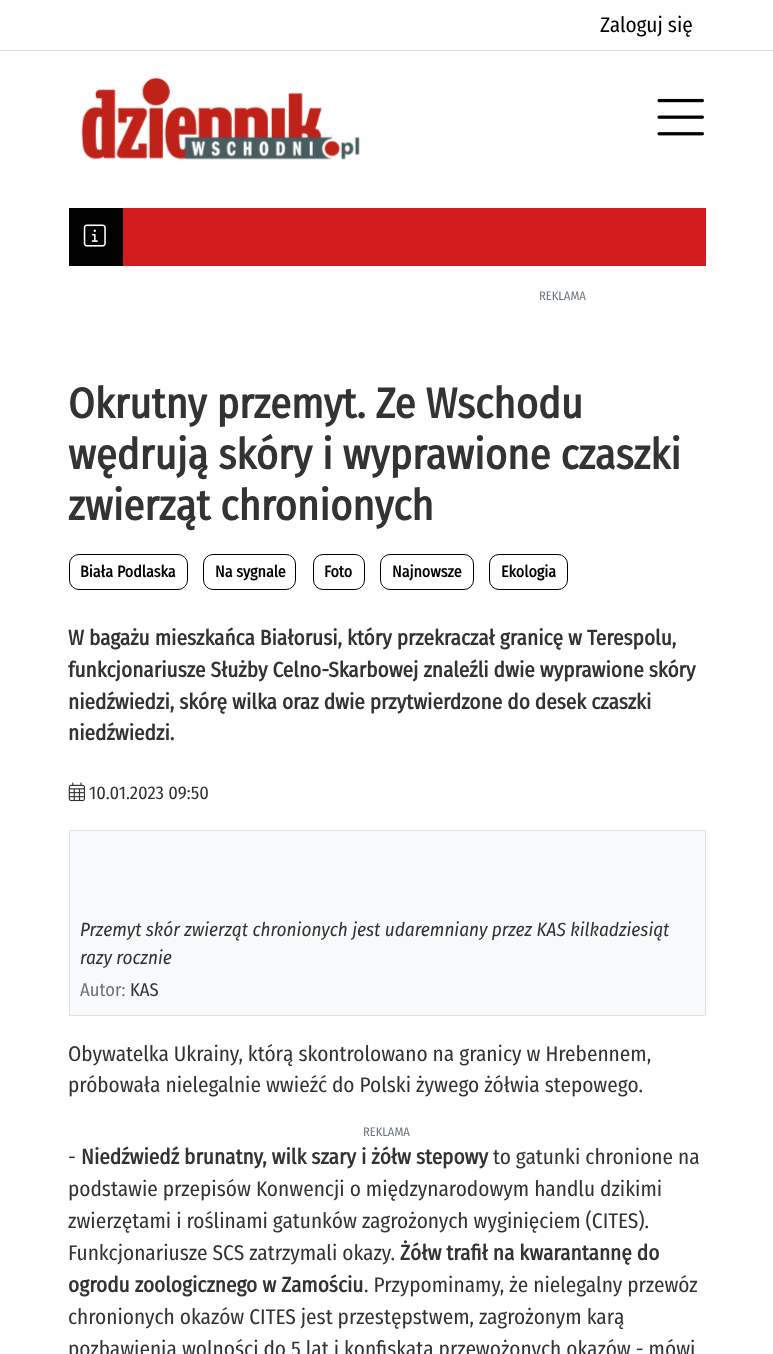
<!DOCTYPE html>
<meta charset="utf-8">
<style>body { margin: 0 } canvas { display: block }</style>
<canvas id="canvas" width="773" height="1354"></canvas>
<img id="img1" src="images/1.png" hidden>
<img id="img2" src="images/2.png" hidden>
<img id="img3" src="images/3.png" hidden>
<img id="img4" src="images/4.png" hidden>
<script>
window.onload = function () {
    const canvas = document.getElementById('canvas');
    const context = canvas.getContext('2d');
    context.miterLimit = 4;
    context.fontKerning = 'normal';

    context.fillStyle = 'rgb(255, 255, 255)';
    context.fillRect(0, 0, 773, 1354);
    context.fillStyle = 'rgb(221, 221, 221)';
    context.fillRect(0, 50, 773, 1);
    context.drawImage(document.getElementById('img1'), 81, 77, 279, 83);
    context.drawImage(document.getElementById('img2'), 657, 98, 47, 38);
    context.fillStyle = 'rgb(210, 27, 28)';
    context.fillRect(123, 208, 583, 58);
    context.fillStyle = 'rgb(0, 0, 0)';
    context.fillRect(69, 208, 54, 58);
    context.drawImage(document.getElementById('img3'), 83, 224, 23, 23);
    context.beginPath();
    context.roundRect(69.5, 554.5, 118, 35, 9.5);
    context.strokeStyle = 'rgb(0, 0, 0)';
    context.stroke();
    context.beginPath();
    context.roundRect(203.5, 554.5, 92, 35, 9.5);
    context.stroke();
    context.beginPath();
    context.roundRect(313.5, 554.5, 51, 35, 9.5);
    context.stroke();
    context.beginPath();
    context.roundRect(380.5, 554.5, 93, 35, 9.5);
    context.stroke();
    context.beginPath();
    context.roundRect(489.5, 554.5, 78, 35, 9.5);
    context.stroke();
    context.drawImage(document.getElementById('img4'), 68, 782, 17, 20);
    context.fillStyle = 'rgb(248, 249, 250)';
    context.beginPath();
    context.rect(69.5, 830.5, 636, 185);
    context.fill();
    context.strokeStyle = 'rgb(222, 226, 230)';
    context.stroke();
    context.font = '21.25px Fira Sans Condensed';
    context.fillStyle = 'rgb(0, 0, 0)';
    context.fillText('Zaloguj się', 600, 32);
    context.font = '12.5px Fira Sans Condensed';
    context.fillStyle = 'rgb(108, 117, 125)';
    context.fillText('REKLAMA', 539, 300);
    context.font = 'bold 42.5px Fira Sans Condensed';
    context.fillStyle = 'rgb(51, 51, 51)';
    context.fillText('Okrutny przemyt. Ze Wschodu', 68, 418);
    context.fillText('wędrują skóry i wyprawione czaszki', 68, 469);
    context.fillText('zwierząt chronionych', 68, 520);
    context.font = 'bold 16px Fira Sans Condensed';
    context.fillStyle = 'rgb(0, 0, 0)';
    context.fillText('Biała Podlaska', 80, 577);
    context.fillText('Na sygnale', 215, 577);
    context.fillText('Foto', 324, 577);
    context.fillText('Najnowsze', 392, 577);
    context.fillText('Ekologia', 501, 577);
    context.font = 'bold 21.25px Fira Sans Condensed';
    context.fillStyle = 'rgb(51, 51, 51)';
    context.fillText('W bagażu mieszkańca Białorusi, który przekraczał granicę w Terespolu,', 68, 645);
    context.fillText('funkcjonariusze Służby Celno-Skarbowej znaleźli dwie wyprawione skóry', 68, 677);
    context.fillText('niedźwiedzi, skórę wilka oraz dwie przytwierdzone do desek czaszki', 68, 709);
    context.fillText('niedźwiedzi.', 68, 740);
    context.font = '18.5px Fira Sans Condensed';
    context.fillText('10.01.2023 09:50', 89, 799);
    context.font = 'italic 19.1px Fira Sans Condensed';
    context.fillText('Przemyt skór zwierząt chronionych jest udaremniany przez KAS kilkadziesiąt', 80, 936);
    context.fillText('razy rocznie', 80, 964);
    context.font = '18.5px Fira Sans Condensed';
    context.fillStyle = 'rgb(108, 117, 125)';
    context.fillText('Autor:', 80, 996);
    context.fillStyle = 'rgb(51, 51, 51)';
    context.fillText('KAS', 130, 996);
    context.font = '21.25px Fira Sans Condensed';
    context.fillText('Obywatelka Ukrainy, którą skontrolowano na granicy w Hrebennem,', 68, 1061);
    context.fillText('próbowała nielegalnie wwieźć do Polski żywego żółwia stepowego.', 68, 1092);
    context.font = '12.5px Fira Sans Condensed';
    context.fillStyle = 'rgb(108, 117, 125)';
    context.fillText('REKLAMA', 363, 1136);
    context.font = '21.25px Fira Sans Condensed';
    context.fillStyle = 'rgb(51, 51, 51)';
    context.fillText('-', 68, 1164);
    context.font = 'bold 21.25px Fira Sans Condensed';
    context.fillText('Niedźwiedź brunatny, wilk szary i żółw stepowy', 81, 1164);
    context.font = '21.25px Fira Sans Condensed';
    context.fillText('to gatunki chronione na', 493, 1164);
    context.fillText('podstawie przepisów Konwencji o międzynarodowym handlu dzikimi', 68, 1196);
    context.fillText('zwierzętami i roślinami gatunków zagrożonych wyginięciem (CITES).', 68, 1228);
    context.fillText('Funkcjonariusze SCS zatrzymali okazy.', 68, 1260);
    context.font = 'bold 21.25px Fira Sans Condensed';
    context.fillText('Żółw trafił na kwarantannę do', 400, 1260);
    context.fillText('ogrodu zoologicznego w Zamościu', 68, 1292);
    context.font = '21.25px Fira Sans Condensed';
    context.fillText('. Przypominamy, że nielegalny przewóz', 364, 1292);
    context.fillText('chronionych okazów CITES jest przestępstwem, zagrożonym karą', 68, 1324);
    context.fillText('pozbawienia wolności do 5 lat i konfiskatą przewożonych okazów - mówi', 68, 1356);
};
</script>
